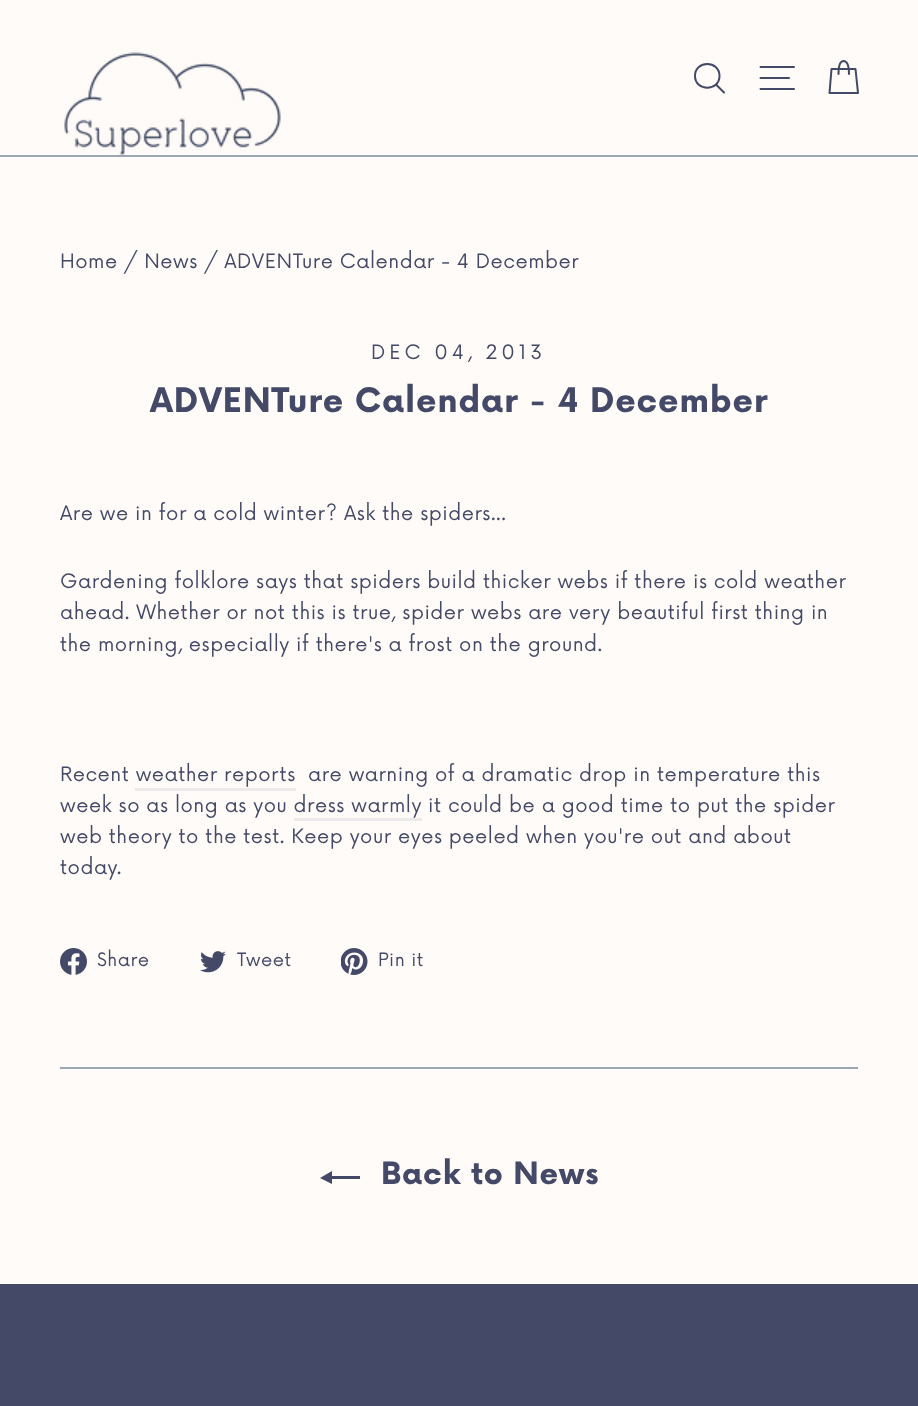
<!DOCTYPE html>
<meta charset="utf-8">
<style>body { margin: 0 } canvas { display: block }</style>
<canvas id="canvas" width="918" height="1406"></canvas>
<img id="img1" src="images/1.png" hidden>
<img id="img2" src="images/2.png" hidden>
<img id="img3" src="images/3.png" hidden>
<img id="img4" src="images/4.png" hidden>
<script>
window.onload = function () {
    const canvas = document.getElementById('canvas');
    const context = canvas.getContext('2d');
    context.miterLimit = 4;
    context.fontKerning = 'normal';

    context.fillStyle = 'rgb(255, 251, 248)';
    context.fillRect(0, 0, 918, 1406);
    context.fillStyle = 'rgb(158, 166, 180)';
    context.fillRect(0, 155, 918, 2);
    context.drawImage(document.getElementById('img1'), 64, 52, 217, 103);
    context.beginPath();
    context.moveTo(719.5, 76);
    context.bezierCurveTo(719.5, 91.5, 695, 91.5, 695, 76);
    context.bezierCurveTo(695, 60, 719.5, 60, 719.5, 76);
    context.closePath();
    context.moveTo(724, 92.5);
    context.lineTo(716, 84.5);
    context.strokeStyle = 'rgb(67, 73, 103)';
    context.lineWidth = 2;
    context.lineCap = 'round';
    context.lineJoin = 'round';
    context.stroke();
    context.beginPath();
    context.moveTo(760.5, 67);
    context.lineTo(794, 67);
    context.moveTo(760.5, 78);
    context.lineTo(789, 78);
    context.moveTo(760.5, 89);
    context.lineTo(794, 89);
    context.stroke();
    context.beginPath();
    context.moveTo(838.5, 74);
    context.bezierCurveTo(838.5, 63.5, 840.5, 61, 843.5, 61);
    context.bezierCurveTo(846.5, 61, 849, 63.5, 849, 74);
    context.moveTo(831.5, 69);
    context.lineTo(855.5, 69);
    context.lineTo(858, 93);
    context.lineTo(829.5, 93);
    context.closePath();
    context.stroke();
    context.fillStyle = 'rgb(236, 233, 234)';
    context.fillRect(135, 788, 161, 3);
    context.fillRect(294, 818, 128, 3);
    context.drawImage(document.getElementById('img2'), 60, 948, 27, 27);
    context.drawImage(document.getElementById('img3'), 200, 951, 26, 22);
    context.drawImage(document.getElementById('img4'), 341, 948, 27, 27);
    context.fillStyle = 'rgb(158, 166, 180)';
    context.fillRect(60, 1067, 798, 2);
    context.fillStyle = 'rgb(67, 73, 103)';
    context.beginPath();
    context.moveTo(360, 1176);
    context.lineTo(360, 1179);
    context.lineTo(332, 1179);
    context.lineTo(332, 1184);
    context.lineTo(320, 1178);
    context.lineTo(332, 1171);
    context.lineTo(332, 1176);
    context.closePath();
    context.fill();
    context.fillRect(0, 1284, 918, 122);
    context.letterSpacing = '0.5px';
    context.font = '19.5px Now';
    context.fillText('Home / News / ADVENTure Calendar - 4 December', 60, 268);
    context.letterSpacing = '3.9px';
    context.fillText('DEC 04, 2013', 371, 359);
    context.letterSpacing = '0.8px';
    context.font = 'bold 33px Now';
    context.fillText('ADVENTure Calendar - 4 December', 150, 412);
    context.letterSpacing = '0.5px';
    context.font = '19.5px Now';
    context.fillText('Are we in for a cold winter? Ask the spiders...', 60, 520);
    context.fillText('Gardening folklore says that spiders build thicker webs if there is cold weather', 60, 588);
    context.fillText('ahead. Whether or not this is true, spider webs are very beautiful first thing in', 60, 619);
    context.fillText('the morning, especially if there\'s a frost on the ground.', 60, 651);
    context.fillText('Recent weather reports', 60, 781);
    context.fillText('are warning of a dramatic drop in temperature this', 308, 781);
    context.fillText('week so as long as you dress warmly', 60, 812);
    context.fillText('it could be a good time to put the spider', 428, 812);
    context.fillText('web theory to the test. Keep your eyes peeled when you\'re out and about', 60, 843);
    context.fillText('today.', 60, 874);
    context.font = '18px Now';
    context.fillText('Share', 97, 966);
    context.fillText('Tweet', 237, 966);
    context.fillText('Pin it', 378, 966);
    context.letterSpacing = '0.75px';
    context.font = 'bold 30px Now';
    context.fillText('Back to News', 381, 1184);
};
</script>
